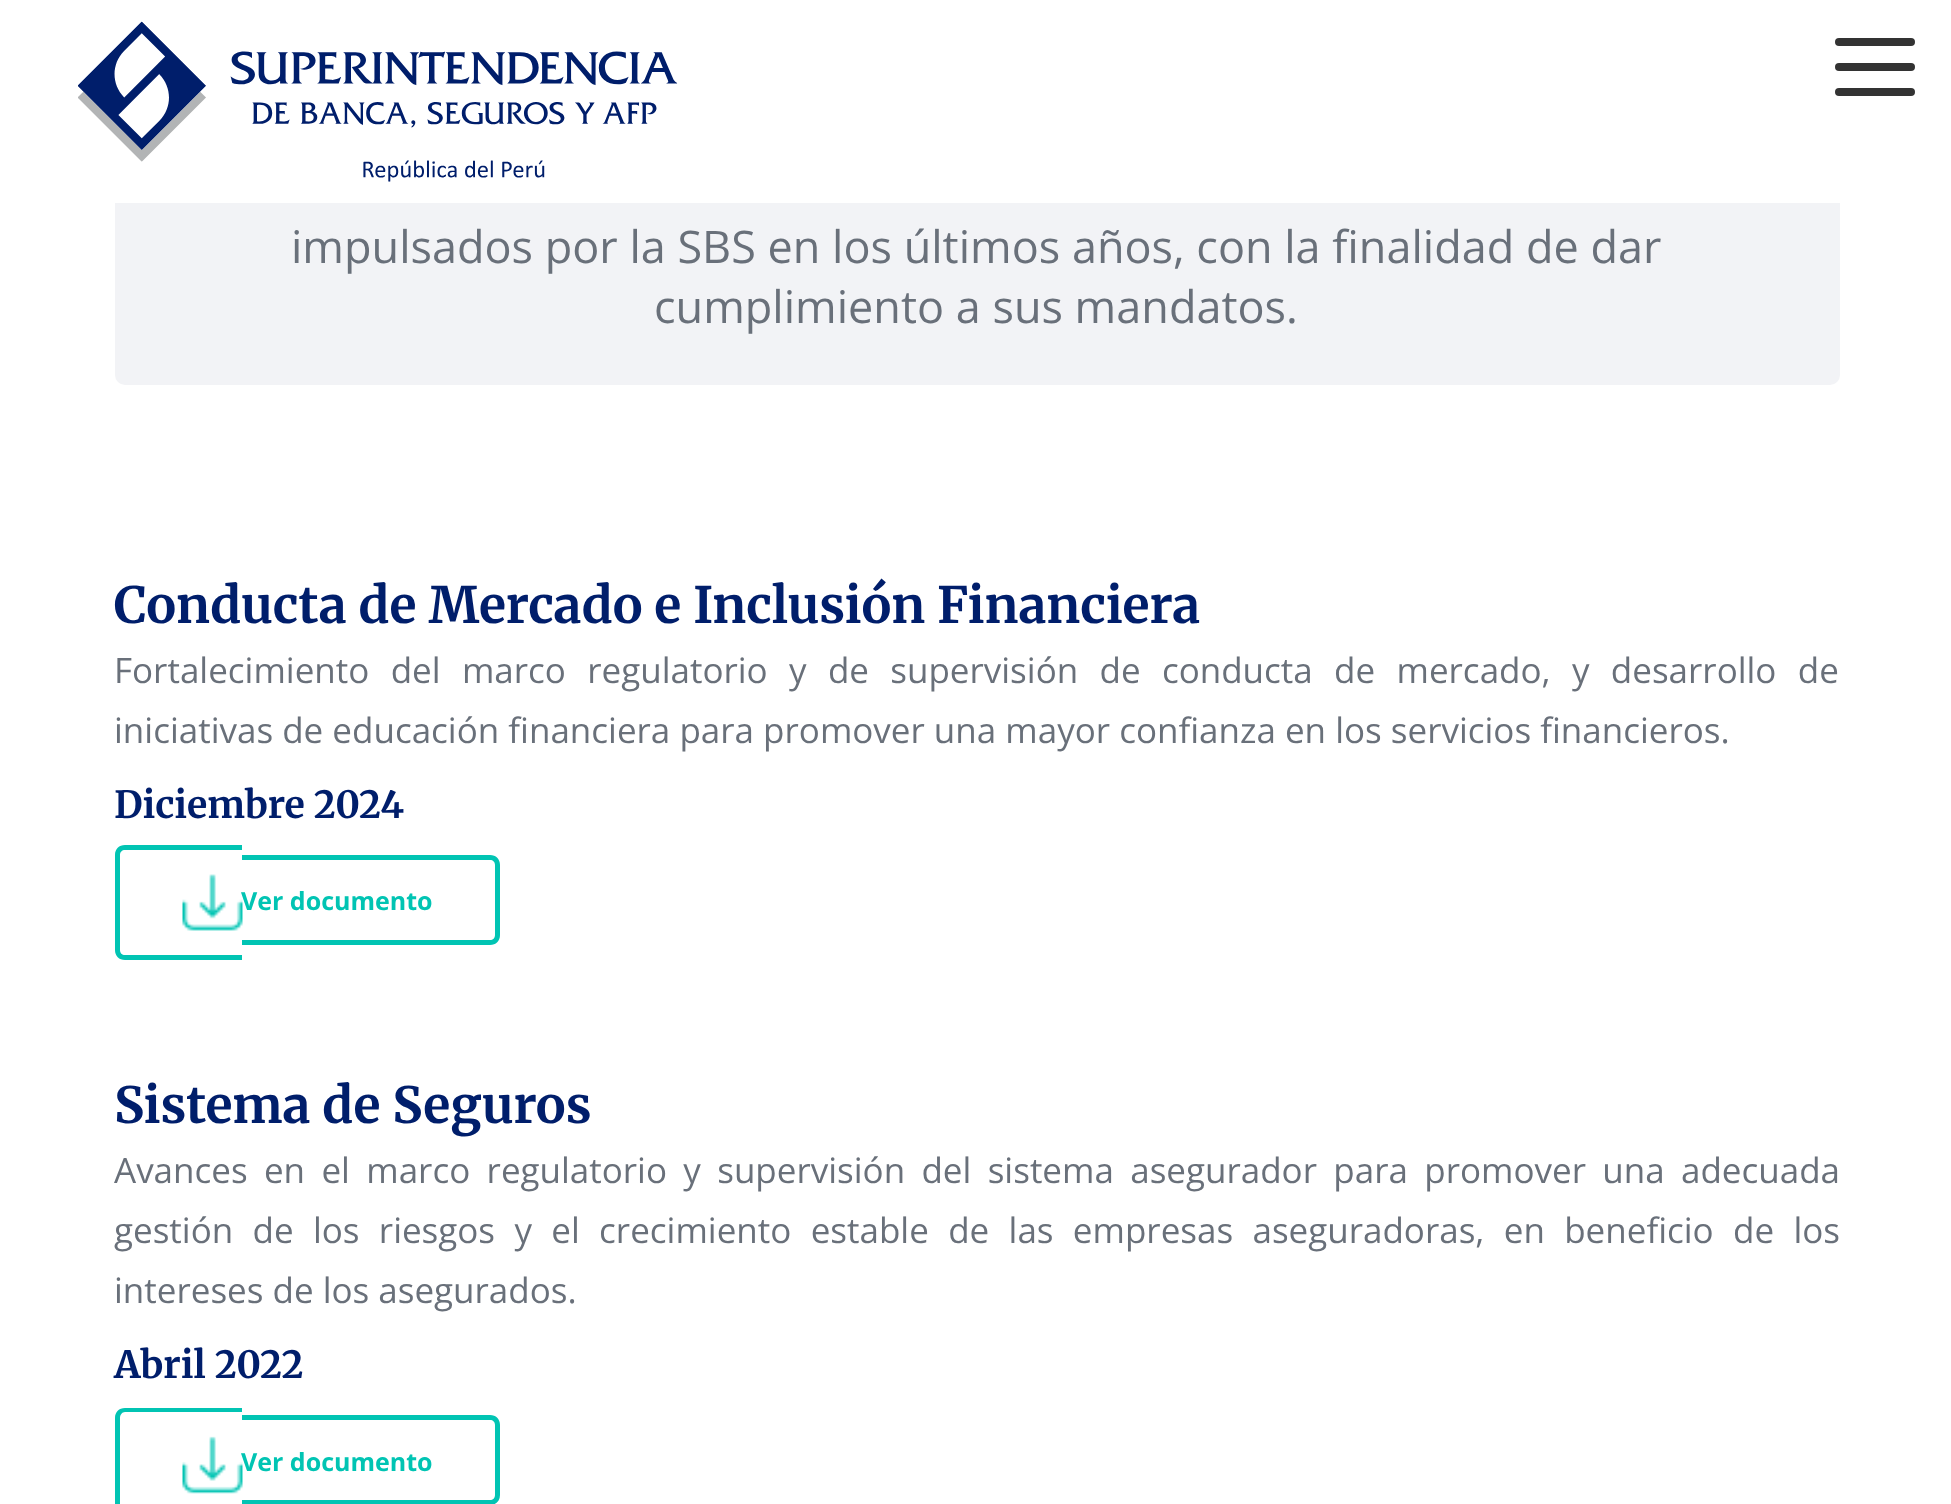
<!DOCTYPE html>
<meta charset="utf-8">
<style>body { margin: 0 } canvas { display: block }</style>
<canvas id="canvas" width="1951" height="1504"></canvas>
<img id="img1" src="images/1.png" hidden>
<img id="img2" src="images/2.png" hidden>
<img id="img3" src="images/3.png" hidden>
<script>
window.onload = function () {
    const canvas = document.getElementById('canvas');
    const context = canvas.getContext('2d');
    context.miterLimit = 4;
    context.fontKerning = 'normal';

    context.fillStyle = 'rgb(255, 255, 255)';
    context.fillRect(0, 0, 1951, 1504);
    context.fillStyle = 'rgb(242, 243, 246)';
    context.beginPath();
    context.roundRect(115, 25, 1725, 360, 10);
    context.fill();
    context.fillStyle = 'rgb(255, 255, 255)';
    context.fillRect(115, 25, 1725, 178);
    context.drawImage(document.getElementById('img1'), 78, 21, 600, 161);
    context.fillStyle = 'rgb(51, 51, 51)';
    context.beginPath();
    context.roundRect(1835, 38, 80, 8, 4);
    context.fill();
    context.beginPath();
    context.roundRect(1835, 63, 80, 8, 4);
    context.fill();
    context.beginPath();
    context.roundRect(1835, 88, 80, 8, 4);
    context.fill();
    context.fillStyle = 'rgb(1, 196, 179)';
    context.beginPath();
    context.moveTo(125, 845);
    context.lineTo(242, 845);
    context.lineTo(242, 960);
    context.lineTo(125, 960);
    context.bezierCurveTo(119, 960, 115, 956, 115, 950);
    context.lineTo(115, 855);
    context.bezierCurveTo(115, 849, 119, 845, 125, 845);
    context.closePath();
    context.moveTo(125, 850);
    context.lineTo(242, 850);
    context.lineTo(242, 955);
    context.lineTo(125, 955);
    context.bezierCurveTo(122, 955, 120, 953, 120, 950);
    context.lineTo(120, 855);
    context.bezierCurveTo(120, 852, 122, 850, 125, 850);
    context.closePath();
    context.fill('evenodd');
    context.beginPath();
    context.moveTo(242, 855);
    context.lineTo(490, 855);
    context.bezierCurveTo(496, 855, 500, 859, 500, 865);
    context.lineTo(500, 935);
    context.bezierCurveTo(500, 941, 496, 945, 490, 945);
    context.lineTo(242, 945);
    context.closePath();
    context.moveTo(242, 860);
    context.lineTo(490, 860);
    context.bezierCurveTo(493, 860, 495, 862, 495, 865);
    context.lineTo(495, 935);
    context.bezierCurveTo(495, 938, 493, 940, 490, 940);
    context.lineTo(242, 940);
    context.closePath();
    context.fill('evenodd');
    context.drawImage(document.getElementById('img2'), 182, 874, 61, 57);
    context.beginPath();
    context.moveTo(125, 1408);
    context.lineTo(242, 1408);
    context.lineTo(242, 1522);
    context.lineTo(125, 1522);
    context.bezierCurveTo(119, 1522, 115, 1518, 115, 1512);
    context.lineTo(115, 1418);
    context.bezierCurveTo(115, 1412, 119, 1408, 125, 1408);
    context.closePath();
    context.moveTo(125, 1412);
    context.lineTo(242, 1412);
    context.lineTo(242, 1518);
    context.lineTo(125, 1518);
    context.bezierCurveTo(122, 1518, 120, 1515, 120, 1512);
    context.lineTo(120, 1418);
    context.bezierCurveTo(120, 1415, 122, 1412, 125, 1412);
    context.closePath();
    context.fill('evenodd');
    context.beginPath();
    context.moveTo(242, 1415);
    context.lineTo(490, 1415);
    context.bezierCurveTo(496, 1415, 500, 1419, 500, 1425);
    context.lineTo(500, 1495);
    context.bezierCurveTo(500, 1501, 496, 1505, 490, 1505);
    context.lineTo(242, 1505);
    context.closePath();
    context.moveTo(242, 1420);
    context.lineTo(490, 1420);
    context.bezierCurveTo(493, 1420, 495, 1422, 495, 1425);
    context.lineTo(495, 1495);
    context.bezierCurveTo(495, 1498, 493, 1500, 490, 1500);
    context.lineTo(242, 1500);
    context.closePath();
    context.fill('evenodd');
    context.drawImage(document.getElementById('img3'), 182, 1436, 61, 58);
    context.font = '45px Open Sans';
    context.fillStyle = 'rgb(105, 112, 122)';
    context.fillText('impulsados por la SBS en los últimos años, con la finalidad de dar', 291, 263);
    context.fillText('cumplimiento a sus mandatos.', 654, 323);
    context.font = 'bold 50px Merriweather';
    context.fillStyle = 'rgb(0, 30, 107)';
    context.fillText('Conducta de Mercado e Inclusión Financiera', 114, 623);
    context.wordSpacing = '12.25px';
    context.font = '35px Open Sans';
    context.fillStyle = 'rgb(105, 112, 122)';
    context.fillText('Fortalecimiento del marco regulatorio y de supervisión de conducta de mercado, y desarrollo de', 114, 683);
    context.wordSpacing = '0px';
    context.fillText('iniciativas de educación financiera para promover una mayor confianza en los servicios financieros.', 114, 743);
    context.font = 'bold 37.5px Merriweather';
    context.fillStyle = 'rgb(0, 30, 107)';
    context.fillText('Diciembre 2024', 114, 818);
    context.font = 'bold 25px Open Sans';
    context.fillStyle = 'rgb(1, 196, 179)';
    context.fillText('Ver documento', 241, 910);
    context.font = 'bold 50px Merriweather';
    context.fillStyle = 'rgb(0, 30, 107)';
    context.fillText('Sistema de Seguros', 114, 1123);
    context.wordSpacing = '7.25px';
    context.font = '35px Open Sans';
    context.fillStyle = 'rgb(105, 112, 122)';
    context.fillText('Avances en el marco regulatorio y supervisión del sistema asegurador para promover una adecuada', 114, 1183);
    context.wordSpacing = '10.25px';
    context.fillText('gestión de los riesgos y el crecimiento estable de las empresas aseguradoras, en beneficio de los', 114, 1243);
    context.wordSpacing = '0px';
    context.fillText('intereses de los asegurados.', 114, 1303);
    context.font = 'bold 37.5px Merriweather';
    context.fillStyle = 'rgb(0, 30, 107)';
    context.fillText('Abril 2022', 114, 1378);
    context.font = 'bold 25px Open Sans';
    context.fillStyle = 'rgb(1, 196, 179)';
    context.fillText('Ver documento', 241, 1471);
};
</script>
